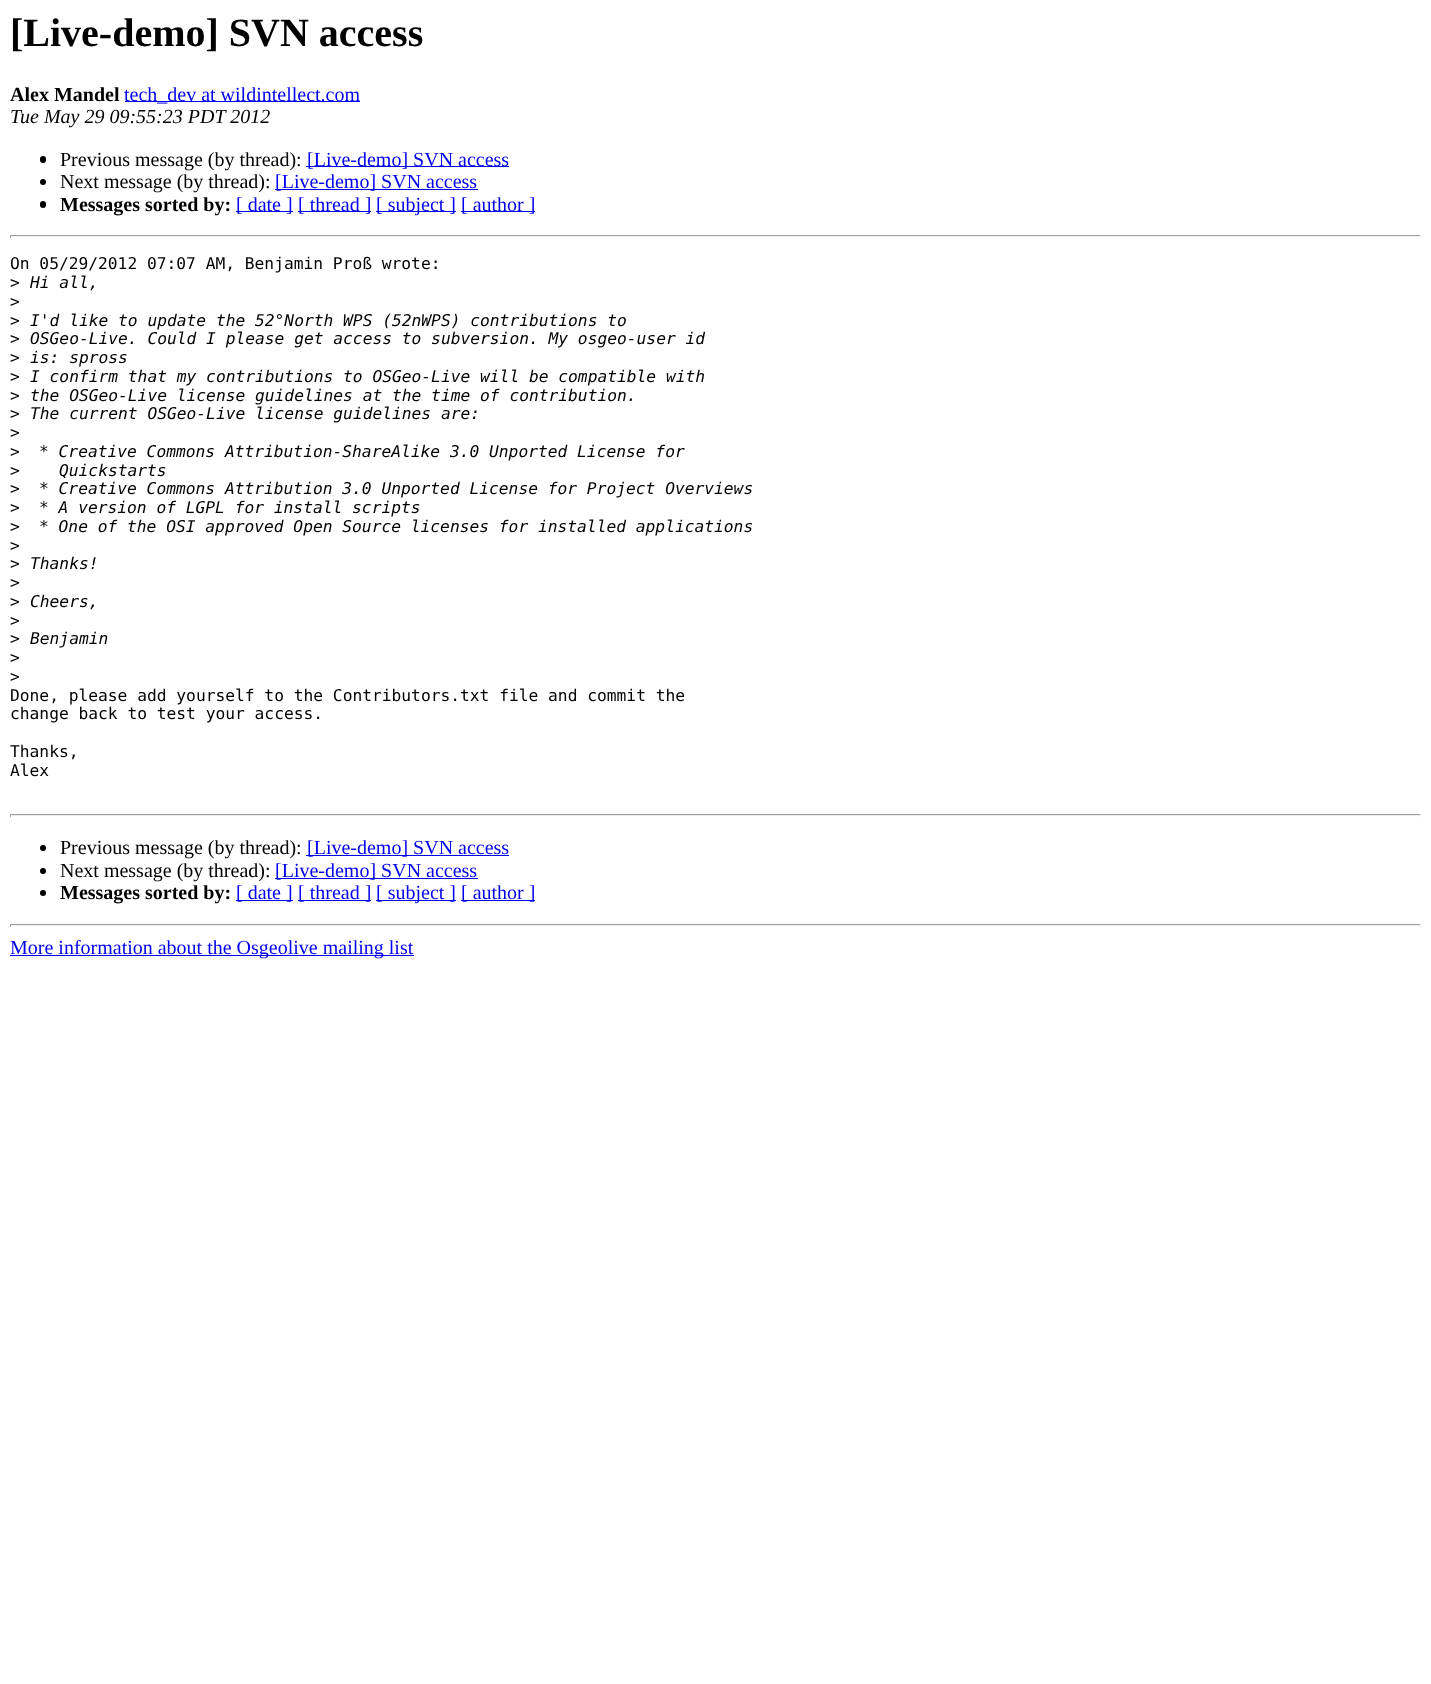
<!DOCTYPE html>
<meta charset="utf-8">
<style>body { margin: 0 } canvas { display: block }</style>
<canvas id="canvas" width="1431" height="1684"></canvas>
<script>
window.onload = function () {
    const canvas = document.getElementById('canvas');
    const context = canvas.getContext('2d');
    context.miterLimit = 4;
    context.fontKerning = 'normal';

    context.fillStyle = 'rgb(255, 255, 255)';
    context.fillRect(0, 0, 1431, 1684);
    context.fillStyle = 'rgb(0, 0, 238)';
    context.fillRect(125, 101, 235, 1);
    context.fillStyle = 'rgb(0, 0, 0)';
    context.beginPath();
    context.roundRect(40, 156, 6, 7, 3);
    context.fill();
    context.fillStyle = 'rgb(0, 0, 238)';
    context.fillRect(306, 166, 203, 1);
    context.fillStyle = 'rgb(0, 0, 0)';
    context.beginPath();
    context.arc(43, 182, 3, 0, 2 * Math.PI);
    context.fill();
    context.fillStyle = 'rgb(0, 0, 238)';
    context.fillRect(275, 189, 203, 1);
    context.fillStyle = 'rgb(0, 0, 0)';
    context.beginPath();
    context.roundRect(40, 201, 6, 7, 3);
    context.fill();
    context.fillStyle = 'rgb(0, 0, 238)';
    context.fillRect(236, 211, 57, 1);
    context.fillRect(298, 211, 73, 1);
    context.fillRect(376, 211, 80, 1);
    context.fillRect(461, 211, 74, 1);
    context.fillStyle = 'rgb(159, 159, 159)';
    context.fillRect(10, 235, 1411, 1);
    context.fillStyle = 'rgb(238, 238, 238)';
    context.fillRect(1420, 235, 1, 3);
    context.fillRect(10, 236, 1411, 1);
    context.fillStyle = 'rgb(159, 159, 159)';
    context.fillRect(10, 235, 1, 3);
    context.fillRect(10, 814, 1411, 1);
    context.fillStyle = 'rgb(238, 238, 238)';
    context.fillRect(1420, 814, 1, 3);
    context.fillRect(10, 815, 1411, 1);
    context.fillStyle = 'rgb(159, 159, 159)';
    context.fillRect(10, 814, 1, 3);
    context.fillStyle = 'rgb(0, 0, 0)';
    context.beginPath();
    context.arc(43, 848, 3, 0, 2 * Math.PI);
    context.fill();
    context.fillStyle = 'rgb(0, 0, 238)';
    context.fillRect(306, 855, 203, 1);
    context.fillStyle = 'rgb(0, 0, 0)';
    context.beginPath();
    context.arc(43, 871, 3, 0, 2 * Math.PI);
    context.fill();
    context.fillStyle = 'rgb(0, 0, 238)';
    context.fillRect(275, 878, 203, 1);
    context.fillStyle = 'rgb(0, 0, 0)';
    context.beginPath();
    context.arc(43, 893, 3, 0, 2 * Math.PI);
    context.fill();
    context.fillStyle = 'rgb(0, 0, 238)';
    context.fillRect(236, 900, 57, 1);
    context.fillRect(298, 900, 73, 1);
    context.fillRect(376, 900, 80, 1);
    context.fillRect(461, 900, 74, 1);
    context.fillStyle = 'rgb(159, 159, 159)';
    context.fillRect(10, 924, 1411, 1);
    context.fillStyle = 'rgb(238, 238, 238)';
    context.fillRect(1420, 924, 1, 3);
    context.fillRect(10, 925, 1411, 1);
    context.fillStyle = 'rgb(159, 159, 159)';
    context.fillRect(10, 924, 1, 3);
    context.fillStyle = 'rgb(0, 0, 238)';
    context.fillRect(10, 955, 404, 1);
    context.font = 'bold 40px Liberation Serif';
    context.fillStyle = 'rgb(0, 0, 0)';
    context.fillText('[Live-demo] SVN access', 10, 46);
    context.font = 'bold 20px Liberation Serif';
    context.fillText('Alex Mandel', 10, 101);
    context.font = '20px Liberation Serif';
    context.fillStyle = 'rgb(0, 0, 238)';
    context.fillText('tech_dev at wildintellect.com', 124, 101);
    context.font = 'italic 20px Liberation Serif';
    context.fillStyle = 'rgb(0, 0, 0)';
    context.fillText('Tue May 29 09:55:23 PDT 2012', 10, 123);
    context.font = '20px Liberation Serif';
    context.fillText('Previous message (by thread):', 60, 166);
    context.fillStyle = 'rgb(0, 0, 238)';
    context.fillText('[Live-demo] SVN access', 307, 166);
    context.fillStyle = 'rgb(0, 0, 0)';
    context.fillText('Next message (by thread):', 60, 188);
    context.fillStyle = 'rgb(0, 0, 238)';
    context.fillText('[Live-demo] SVN access', 275, 188);
    context.font = 'bold 20px Liberation Serif';
    context.fillStyle = 'rgb(0, 0, 0)';
    context.fillText('Messages sorted by:', 60, 211);
    context.font = '20px Liberation Serif';
    context.fillStyle = 'rgb(0, 0, 238)';
    context.fillText('[ date ]', 236, 211);
    context.fillText('[ thread ]', 298, 211);
    context.fillText('[ subject ]', 376, 211);
    context.fillText('[ author ]', 461, 211);
    context.font = '16.25px DejaVu Sans Mono';
    context.fillStyle = 'rgb(0, 0, 0)';
    context.fillText('On 05/29/2012 07:07 AM, Benjamin Proß wrote:', 10, 269);
    context.fillText('>', 10, 288);
    context.font = 'italic 16.25px DejaVu Sans Mono';
    context.fillText('Hi all,', 30, 288);
    context.font = '16.25px DejaVu Sans Mono';
    context.fillText('>', 10, 307);
    context.fillText('>', 10, 326);
    context.font = 'italic 16.25px DejaVu Sans Mono';
    context.fillText('I\'d like to update the 52°North WPS (52nWPS) contributions to', 30, 326);
    context.font = '16.25px DejaVu Sans Mono';
    context.fillText('>', 10, 344);
    context.font = 'italic 16.25px DejaVu Sans Mono';
    context.fillText('OSGeo-Live. Could I please get access to subversion. My osgeo-user id', 30, 344);
    context.font = '16.25px DejaVu Sans Mono';
    context.fillText('>', 10, 363);
    context.font = 'italic 16.25px DejaVu Sans Mono';
    context.fillText('is: spross', 30, 363);
    context.font = '16.25px DejaVu Sans Mono';
    context.fillText('>', 10, 382);
    context.font = 'italic 16.25px DejaVu Sans Mono';
    context.fillText('I confirm that my contributions to OSGeo-Live will be compatible with', 30, 382);
    context.font = '16.25px DejaVu Sans Mono';
    context.fillText('>', 10, 401);
    context.font = 'italic 16.25px DejaVu Sans Mono';
    context.fillText('the OSGeo-Live license guidelines at the time of contribution.', 30, 401);
    context.font = '16.25px DejaVu Sans Mono';
    context.fillText('>', 10, 419);
    context.font = 'italic 16.25px DejaVu Sans Mono';
    context.fillText('The current OSGeo-Live license guidelines are:', 30, 419);
    context.font = '16.25px DejaVu Sans Mono';
    context.fillText('>', 10, 438);
    context.fillText('>', 10, 457);
    context.font = 'italic 16.25px DejaVu Sans Mono';
    context.fillText('* Creative Commons Attribution-ShareAlike 3.0 Unported License for', 39, 457);
    context.font = '16.25px DejaVu Sans Mono';
    context.fillText('>', 10, 476);
    context.font = 'italic 16.25px DejaVu Sans Mono';
    context.fillText('Quickstarts', 59, 476);
    context.font = '16.25px DejaVu Sans Mono';
    context.fillText('>', 10, 494);
    context.font = 'italic 16.25px DejaVu Sans Mono';
    context.fillText('* Creative Commons Attribution 3.0 Unported License for Project Overviews', 39, 494);
    context.font = '16.25px DejaVu Sans Mono';
    context.fillText('>', 10, 513);
    context.font = 'italic 16.25px DejaVu Sans Mono';
    context.fillText('* A version of LGPL for install scripts', 39, 513);
    context.font = '16.25px DejaVu Sans Mono';
    context.fillText('>', 10, 532);
    context.font = 'italic 16.25px DejaVu Sans Mono';
    context.fillText('* One of the OSI approved Open Source licenses for installed applications', 39, 532);
    context.font = '16.25px DejaVu Sans Mono';
    context.fillText('>', 10, 551);
    context.fillText('>', 10, 569);
    context.font = 'italic 16.25px DejaVu Sans Mono';
    context.fillText('Thanks!', 30, 569);
    context.font = '16.25px DejaVu Sans Mono';
    context.fillText('>', 10, 588);
    context.fillText('>', 10, 607);
    context.font = 'italic 16.25px DejaVu Sans Mono';
    context.fillText('Cheers,', 30, 607);
    context.font = '16.25px DejaVu Sans Mono';
    context.fillText('>', 10, 626);
    context.fillText('>', 10, 644);
    context.font = 'italic 16.25px DejaVu Sans Mono';
    context.fillText('Benjamin', 30, 644);
    context.font = '16.25px DejaVu Sans Mono';
    context.fillText('>', 10, 663);
    context.fillText('>', 10, 682);
    context.fillText('Done, please add yourself to the Contributors.txt file and commit the', 10, 701);
    context.fillText('change back to test your access.', 10, 719);
    context.fillText('Thanks,', 10, 757);
    context.fillText('Alex', 10, 776);
    context.font = '20px Liberation Serif';
    context.fillText('Previous message (by thread):', 60, 854);
    context.fillStyle = 'rgb(0, 0, 238)';
    context.fillText('[Live-demo] SVN access', 307, 854);
    context.fillStyle = 'rgb(0, 0, 0)';
    context.fillText('Next message (by thread):', 60, 877);
    context.fillStyle = 'rgb(0, 0, 238)';
    context.fillText('[Live-demo] SVN access', 275, 877);
    context.font = 'bold 20px Liberation Serif';
    context.fillStyle = 'rgb(0, 0, 0)';
    context.fillText('Messages sorted by:', 60, 899);
    context.font = '20px Liberation Serif';
    context.fillStyle = 'rgb(0, 0, 238)';
    context.fillText('[ date ]', 236, 899);
    context.fillText('[ thread ]', 298, 899);
    context.fillText('[ subject ]', 376, 899);
    context.fillText('[ author ]', 461, 899);
    context.fillText('More information about the Osgeolive mailing list', 10, 954);
};
</script>
